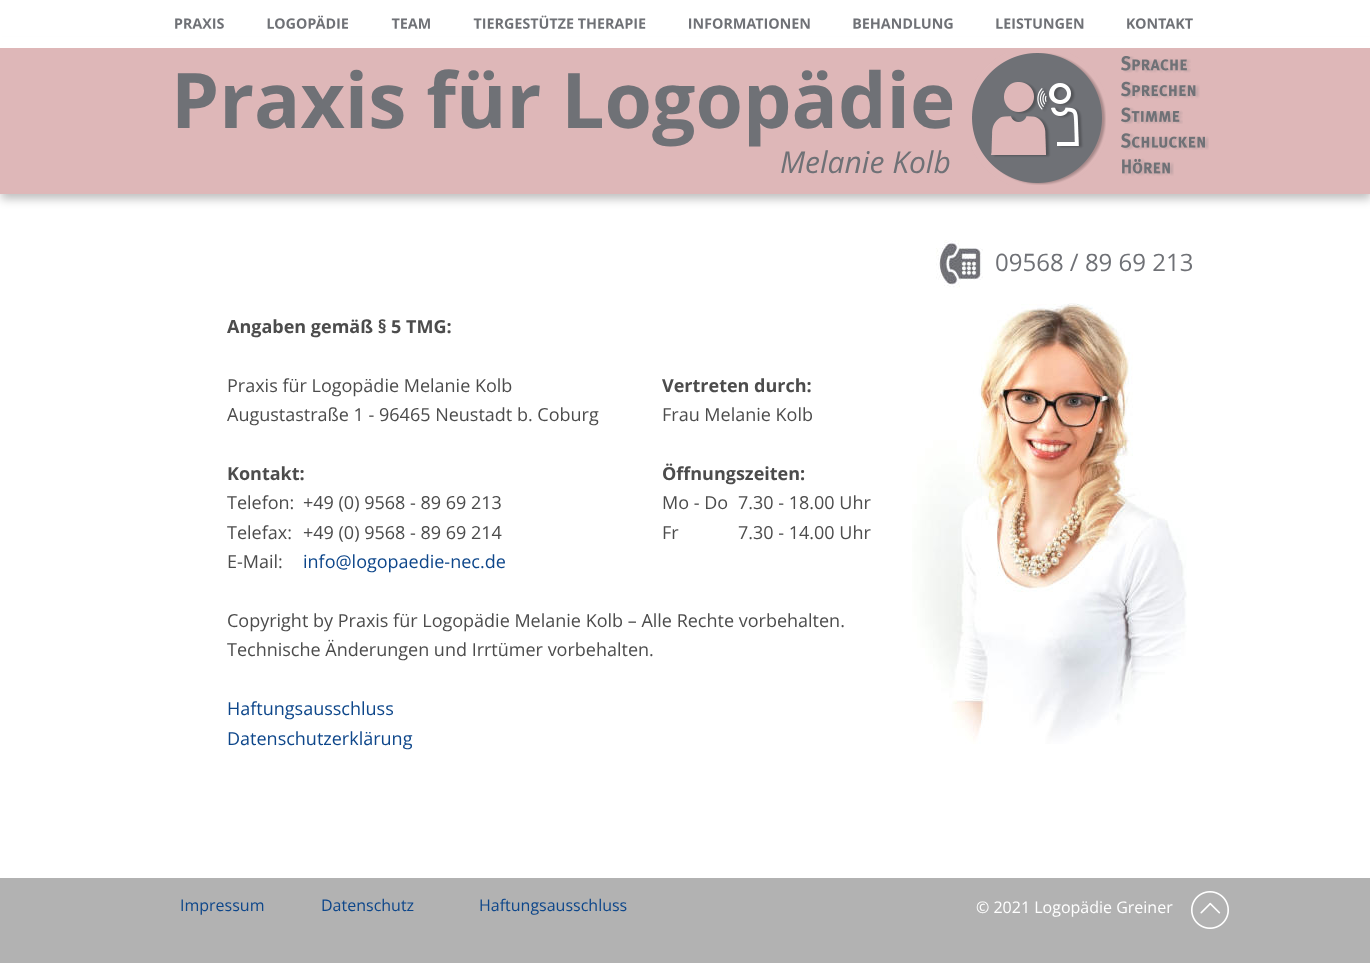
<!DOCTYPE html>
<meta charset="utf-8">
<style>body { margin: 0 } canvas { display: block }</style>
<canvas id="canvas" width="1370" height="963"></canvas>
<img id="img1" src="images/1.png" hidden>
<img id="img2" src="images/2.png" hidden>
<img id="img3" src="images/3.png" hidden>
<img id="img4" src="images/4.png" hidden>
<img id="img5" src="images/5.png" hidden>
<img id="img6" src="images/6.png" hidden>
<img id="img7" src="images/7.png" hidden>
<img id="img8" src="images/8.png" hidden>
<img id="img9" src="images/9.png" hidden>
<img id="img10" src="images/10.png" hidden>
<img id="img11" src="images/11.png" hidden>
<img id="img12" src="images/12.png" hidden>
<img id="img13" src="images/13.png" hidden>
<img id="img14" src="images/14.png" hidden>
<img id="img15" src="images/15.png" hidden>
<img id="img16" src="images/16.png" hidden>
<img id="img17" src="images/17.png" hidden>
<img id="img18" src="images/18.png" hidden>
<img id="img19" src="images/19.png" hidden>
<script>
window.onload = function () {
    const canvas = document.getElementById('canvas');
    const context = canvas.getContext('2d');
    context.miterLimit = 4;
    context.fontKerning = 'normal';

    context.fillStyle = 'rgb(255, 255, 255)';
    context.fillRect(0, 0, 1370, 963);
    context.drawImage(document.getElementById('img1'), 175, 18, 49, 11);
    context.drawImage(document.getElementById('img2'), 267, 15, 81, 14);
    context.drawImage(document.getElementById('img3'), 391, 18, 39, 11);
    context.drawImage(document.getElementById('img4'), 473, 15, 173, 14);
    context.drawImage(document.getElementById('img5'), 689, 18, 121, 11);
    context.drawImage(document.getElementById('img6'), 853, 18, 100, 11);
    context.drawImage(document.getElementById('img7'), 996, 18, 88, 11);
    context.drawImage(document.getElementById('img8'), 1127, 18, 66, 11);
    context.fillStyle = 'rgba(0, 0, 0, 0.25)';
    context.filter = 'blur(5px)';
    context.beginPath();
    context.rect(1, 46, 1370, 153);
    context.fill();
    context.filter = 'none';
    context.fillStyle = 'rgb(255, 255, 255)';
    context.fillRect(0, 37, 1370, 11);
    context.fillStyle = 'rgb(222, 183, 184)';
    context.fillRect(0, 48, 1370, 146);
    context.drawImage(document.getElementById('img9'), 972, 53, 134, 132);
    context.drawImage(document.getElementById('img10'), 1121, 56, 70, 17);
    context.drawImage(document.getElementById('img11'), 1121, 81, 79, 18);
    context.drawImage(document.getElementById('img12'), 1121, 107, 62, 17);
    context.drawImage(document.getElementById('img13'), 1121, 133, 88, 17);
    context.drawImage(document.getElementById('img14'), 1122, 158, 52, 18);
    context.drawImage(document.getElementById('img15'), 936, 240, 47, 48);
    context.drawImage(document.getElementById('img16'), 912, 303, 275, 441);
    context.fillStyle = 'rgb(178, 178, 178)';
    context.fillRect(0, 878, 1370, 85);
    context.drawImage(document.getElementById('img17'), 1191, 891, 38, 38);
    context.drawImage(document.getElementById('img18'), 1200, 902, 11, 12);
    context.drawImage(document.getElementById('img19'), 1209, 902, 12, 12);
    context.font = 'bold 76.75px Open Sans';
    context.fillStyle = 'rgb(111, 113, 118)';
    context.fillText('Praxis für Logopädie', 171, 128);
    context.font = 'italic 30px Open Sans';
    context.fillText('Melanie Kolb', 780, 173);
    context.font = '24px Open Sans';
    context.fillText('09568 / 89 69 213', 995, 271);
    context.font = 'bold 18px Open Sans';
    context.fillStyle = 'rgb(76, 76, 76)';
    context.fillText('Angaben gemäß § 5 TMG:', 227, 333);
    context.font = '18px Open Sans';
    context.fillText('Praxis für Logopädie Melanie Kolb', 227, 392);
    context.fillText('Augustastraße 1 - 96465 Neustadt b. Coburg', 227, 421);
    context.font = 'bold 18px Open Sans';
    context.fillText('Kontakt:', 227, 480);
    context.font = '18px Open Sans';
    context.fillText('Telefon:', 227, 509);
    context.fillText('+49 (0) 9568 - 89 69 213', 303, 509);
    context.fillText('Telefax:', 227, 539);
    context.fillText('+49 (0) 9568 - 89 69 214', 303, 539);
    context.fillText('E-Mail:', 227, 568);
    context.fillStyle = 'rgb(13, 70, 138)';
    context.fillText('info@logopaedie-nec.de', 303, 568);
    context.fillStyle = 'rgb(76, 76, 76)';
    context.fillText('Copyright by Praxis für Logopädie Melanie Kolb – Alle Rechte vorbehalten.', 227, 627);
    context.fillText('Technische Änderungen und Irrtümer vorbehalten.', 227, 656);
    context.fillStyle = 'rgb(13, 70, 138)';
    context.fillText('Haftungsausschluss', 227, 715);
    context.fillText('Datenschutzerklärung', 227, 745);
    context.font = 'bold 18px Open Sans';
    context.fillStyle = 'rgb(76, 76, 76)';
    context.fillText('Vertreten durch:', 662, 392);
    context.font = '18px Open Sans';
    context.fillText('Frau Melanie Kolb', 662, 421);
    context.font = 'bold 18px Open Sans';
    context.fillText('Öffnungszeiten:', 662, 480);
    context.font = '18px Open Sans';
    context.fillText('Mo - Do', 662, 509);
    context.fillText('7.30 - 18.00 Uhr', 738, 509);
    context.fillText('Fr', 662, 539);
    context.fillText('7.30 - 14.00 Uhr', 738, 539);
    context.font = '16px Open Sans';
    context.fillStyle = 'rgb(13, 70, 138)';
    context.fillText('Impressum', 180, 911);
    context.fillText('Datenschutz', 321, 911);
    context.fillText('Haftungsausschluss', 479, 911);
    context.fillStyle = 'rgb(255, 255, 255)';
    context.fillText('© 2021 Logopädie Greiner', 976, 913);
};
</script>
